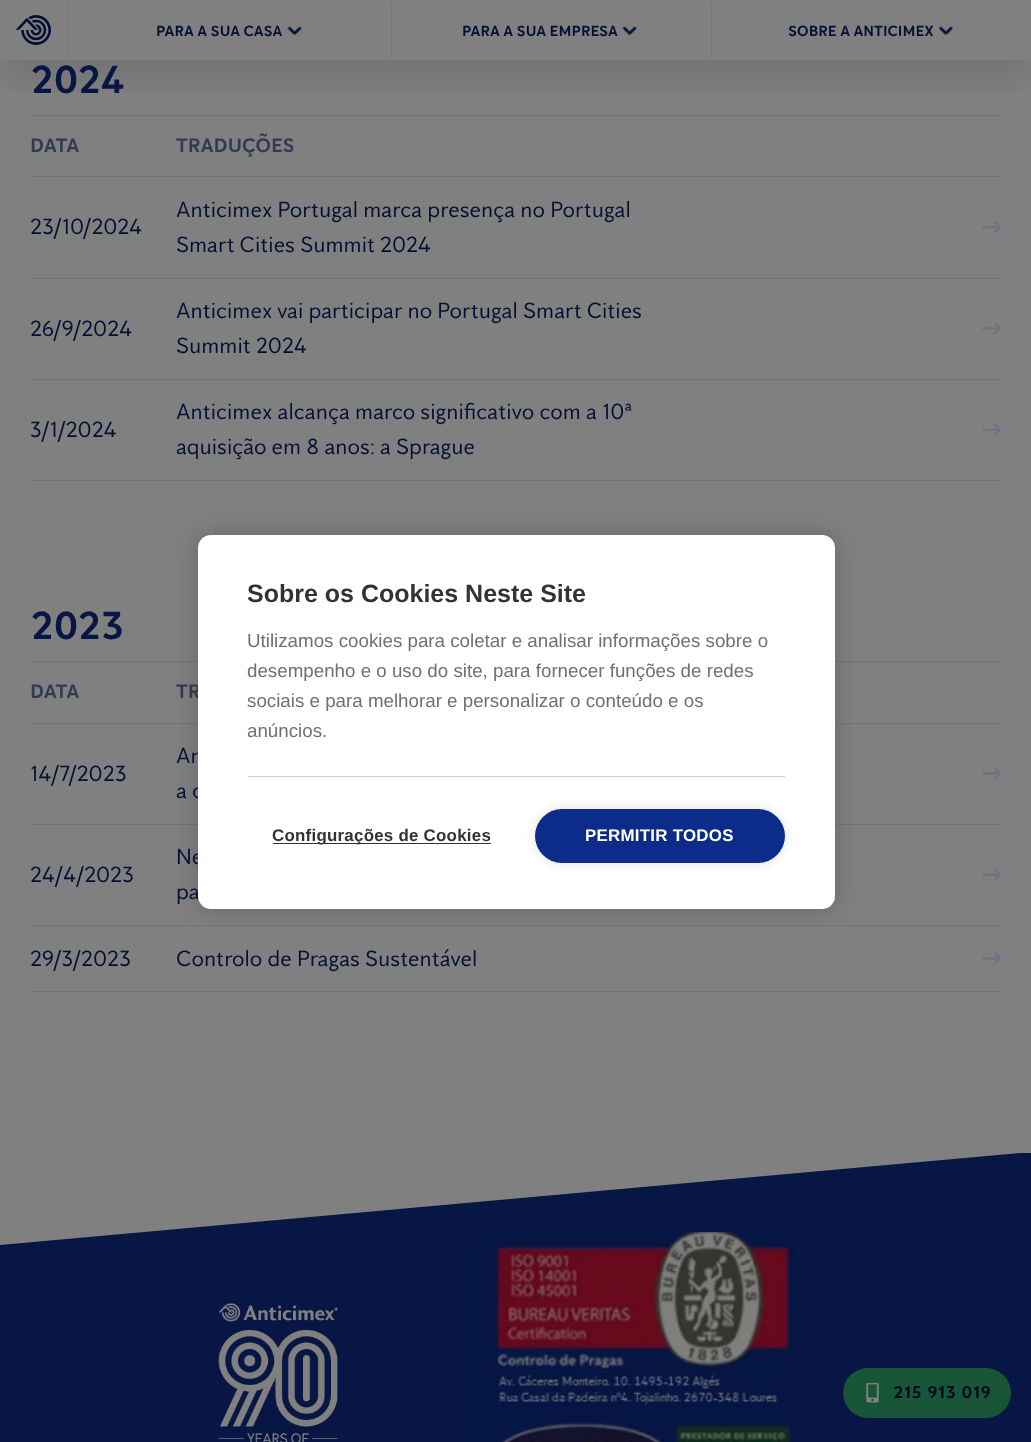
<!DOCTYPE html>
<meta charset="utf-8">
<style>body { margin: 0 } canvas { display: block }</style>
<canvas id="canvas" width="1031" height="1442"></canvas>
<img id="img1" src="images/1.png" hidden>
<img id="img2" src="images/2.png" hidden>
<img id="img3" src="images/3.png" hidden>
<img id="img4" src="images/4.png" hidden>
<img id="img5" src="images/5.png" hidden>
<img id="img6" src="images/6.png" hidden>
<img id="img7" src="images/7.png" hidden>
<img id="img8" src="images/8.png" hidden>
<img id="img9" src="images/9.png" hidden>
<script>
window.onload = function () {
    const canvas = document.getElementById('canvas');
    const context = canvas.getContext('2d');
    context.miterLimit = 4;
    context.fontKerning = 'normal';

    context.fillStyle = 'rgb(128, 128, 128)';
    context.fillRect(0, 0, 1031, 1442);
    context.fillStyle = 'rgb(109, 118, 128)';
    context.fillRect(30, 115, 971, 1);
    context.save();
    context.beginPath();
    context.rect(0, 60, 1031, 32);
    context.clip();
    context.fillStyle = 'rgba(0, 0, 0, 0.1)';
    context.filter = 'blur(15.5px)';
    context.beginPath();
    context.rect(6, 31, 1019, 48);
    context.fill();
    context.filter = 'none';
    context.restore();
    context.fillStyle = 'rgb(120, 120, 120)';
    context.fillRect(68, 0, 1, 60);
    context.drawImage(document.getElementById('img1'), 15, 15, 36, 30);
    context.drawImage(document.getElementById('img2'), 287, 26, 15, 9);
    context.fillRect(391, 1, 1, 59);
    context.drawImage(document.getElementById('img2'), 622, 26, 15, 9);
    context.fillRect(711, 1, 1, 59);
    context.drawImage(document.getElementById('img3'), 938, 26, 15, 9);
    context.fillStyle = 'rgb(109, 118, 128)';
    context.fillRect(30, 176, 971, 1);
    context.fillRect(30, 278, 971, 1);
    context.drawImage(document.getElementById('img4'), 982, 221, 19, 13);
    context.fillRect(30, 379, 971, 1);
    context.drawImage(document.getElementById('img5'), 982, 322, 19, 13);
    context.fillRect(30, 480, 971, 1);
    context.drawImage(document.getElementById('img6'), 982, 423, 19, 13);
    context.fillRect(30, 661, 971, 1);
    context.fillRect(30, 723, 971, 1);
    context.fillRect(30, 824, 971, 1);
    context.drawImage(document.getElementById('img5'), 982, 767, 19, 13);
    context.fillRect(30, 925, 971, 1);
    context.drawImage(document.getElementById('img6'), 982, 868, 19, 13);
    context.fillRect(30, 991, 971, 1);
    context.drawImage(document.getElementById('img5'), 982, 952, 19, 13);
    context.fillStyle = 'rgb(7, 22, 68)';
    context.beginPath();
    context.moveTo(0, 1245);
    context.lineTo(0, 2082);
    context.lineTo(1031, 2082);
    context.lineTo(1031, 1153);
    context.lineTo(1020, 1153);
    context.closePath();
    context.fill();
    context.drawImage(document.getElementById('img7'), 218, 1303, 120, 139);
    context.drawImage(document.getElementById('img8'), 458, 1232, 338, 210);
    context.fillStyle = 'rgba(0, 0, 0, 0.2)';
    context.filter = 'blur(12.5px)';
    context.beginPath();
    context.roundRect(198, 535, 637, 374, 13);
    context.fill();
    context.filter = 'none';
    context.fillStyle = 'rgb(23, 85, 54)';
    context.beginPath();
    context.roundRect(843, 1368, 168, 50, 25);
    context.fill();
    context.drawImage(document.getElementById('img9'), 866, 1383, 13, 20);
    context.font = 'bold 15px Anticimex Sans';
    context.fillStyle = 'rgb(3, 15, 51)';
    context.fillText('PARA A SUA CASA', 156, 36);
    context.fillText('PARA A SUA EMPRESA', 462, 36);
    context.fillText('SOBRE A ANTICIMEX', 788, 36);
    context.font = 'bold 40px Anticimex Sans';
    context.fillStyle = 'rgb(7, 22, 68)';
    context.fillText('2024', 30, 93);
    context.font = 'bold 20px Anticimex Sans';
    context.fillStyle = 'rgb(48, 58, 81)';
    context.fillText('DATA', 30, 152);
    context.fillText('TRADUÇÕES', 176, 152);
    context.font = '22.5px Anticimex Sans';
    context.fillStyle = 'rgb(3, 15, 51)';
    context.fillText('23/10/2024', 30, 234);
    context.fillText('Anticimex Portugal marca presença no Portugal', 176, 217);
    context.fillText('Smart Cities Summit 2024', 176, 252);
    context.fillText('26/9/2024', 30, 336);
    context.fillText('Anticimex vai participar no Portugal Smart Cities', 176, 318);
    context.fillText('Summit 2024', 176, 353);
    context.fillText('3/1/2024', 30, 437);
    context.fillText('Anticimex alcança marco significativo com a 10ª', 176, 419);
    context.fillText('aquisição em 8 anos: a Sprague', 176, 454);
    context.font = 'bold 40px Anticimex Sans';
    context.fillStyle = 'rgb(7, 22, 68)';
    context.fillText('2023', 30, 639);
    context.font = 'bold 20px Anticimex Sans';
    context.fillStyle = 'rgb(48, 58, 81)';
    context.fillText('DATA', 30, 698);
    context.fillText('TR', 176, 698);
    context.font = '22.5px Anticimex Sans';
    context.fillStyle = 'rgb(3, 15, 51)';
    context.fillText('14/7/2023', 30, 781);
    context.fillText('An', 176, 763);
    context.fillText('a c', 176, 798);
    context.fillText('24/4/2023', 30, 882);
    context.fillText('Ne', 176, 864);
    context.fillText('pa', 176, 899);
    context.fillText('29/3/2023', 30, 966);
    context.fillText('Controlo de Pragas Sustentável', 176, 966);
    context.fillStyle = 'rgb(255, 255, 255)';
    context.beginPath();
    context.roundRect(198, 535, 637, 374, 13);
    context.fill();
    context.fillStyle = 'rgb(203, 203, 203)';
    context.fillRect(248, 776, 537, 1);
    context.font = 'bold 25px Liberation Sans';
    context.fillStyle = 'rgb(51, 51, 51)';
    context.fillText('Sobre os Cookies Neste Site', 247, 602);
    context.font = '18.75px Liberation Sans';
    context.fillStyle = 'rgb(112, 112, 112)';
    context.fillText('Utilizamos cookies para coletar e analisar informações sobre o', 247, 647);
    context.fillText('desempenho e o uso do site, para fornecer funções de redes', 247, 677);
    context.fillText('sociais e para melhorar e personalizar o conteúdo e os', 247, 707);
    context.fillText('anúncios.', 247, 737);
    context.fillStyle = 'rgb(51, 51, 51)';
    context.fillRect(273, 843, 218, 1);
    context.letterSpacing = '0.25px';
    context.font = 'bold 16.9px Liberation Sans';
    context.fillText('Configurações de Cookies', 272, 841);
    context.fillStyle = 'rgba(0, 0, 0, 0.12)';
    context.filter = 'blur(6px)';
    context.beginPath();
    context.roundRect(535, 809, 250, 54, 27);
    context.fill();
    context.filter = 'none';
    context.fillStyle = 'rgb(13, 43, 136)';
    context.beginPath();
    context.roundRect(535, 809, 250, 54, 27);
    context.fill();
    context.fillStyle = 'rgb(255, 255, 255)';
    context.fillText('PERMITIR TODOS', 585, 841);
    context.letterSpacing = '0.9px';
    context.font = 'bold 17.5px Anticimex Sans';
    context.fillStyle = 'rgb(0, 8, 30)';
    context.fillText('215 913 019', 893, 1398);
};
</script>
